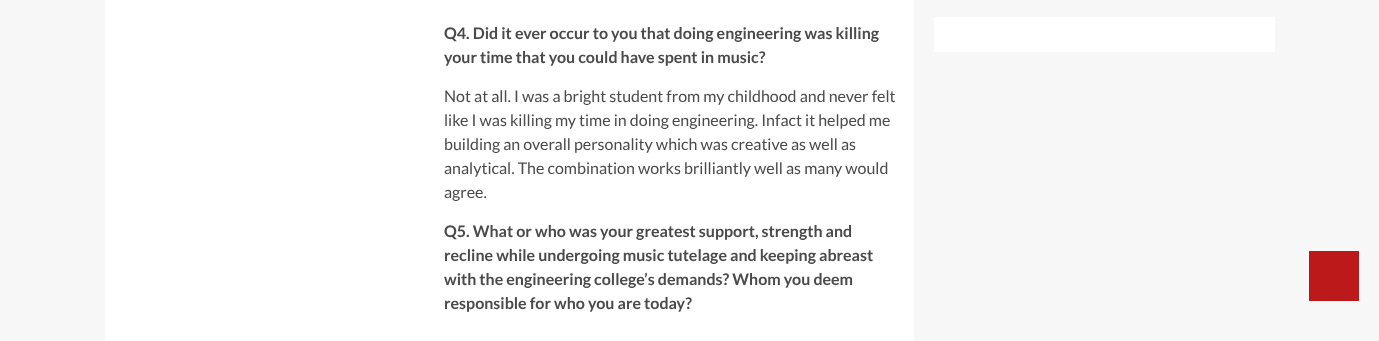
<!DOCTYPE html>
<meta charset="utf-8">
<style>body { margin: 0 } canvas { display: block }</style>
<canvas id="canvas" width="1379" height="341"></canvas>
<script>
window.onload = function () {
    const canvas = document.getElementById('canvas');
    const context = canvas.getContext('2d');
    context.miterLimit = 4;
    context.fontKerning = 'normal';

    context.fillStyle = 'rgb(247, 247, 247)';
    context.fillRect(0, 0, 1379, 341);
    context.fillStyle = 'rgb(255, 255, 255)';
    context.fillRect(105, 0, 809, 341);
    context.fillRect(934, 17, 341, 35);
    context.fillStyle = 'rgb(187, 25, 26)';
    context.fillRect(1309, 251, 50, 50);
    context.font = 'bold 16px Lato';
    context.fillStyle = 'rgb(74, 74, 74)';
    context.fillText('Q4. Did it ever occur to you that doing engineering was killing', 444, 39);
    context.fillText('your time that you could have spent in music?', 444, 63);
    context.font = '16px Lato';
    context.fillText('Not at all. I was a bright student from my childhood and never felt', 444, 102);
    context.fillText('like I was killing my time in doing engineering. Infact it helped me', 444, 126);
    context.fillText('building an overall personality which was creative as well as', 444, 150);
    context.fillText('analytical. The combination works brilliantly well as many would', 444, 174);
    context.fillText('agree.', 444, 198);
    context.font = 'bold 16px Lato';
    context.fillText('Q5. What or who was your greatest support, strength and', 444, 237);
    context.fillText('recline while undergoing music tutelage and keeping abreast', 444, 261);
    context.fillText('with the engineering college’s demands? Whom you deem', 444, 285);
    context.fillText('responsible for who you are today?', 444, 309);
};
</script>
